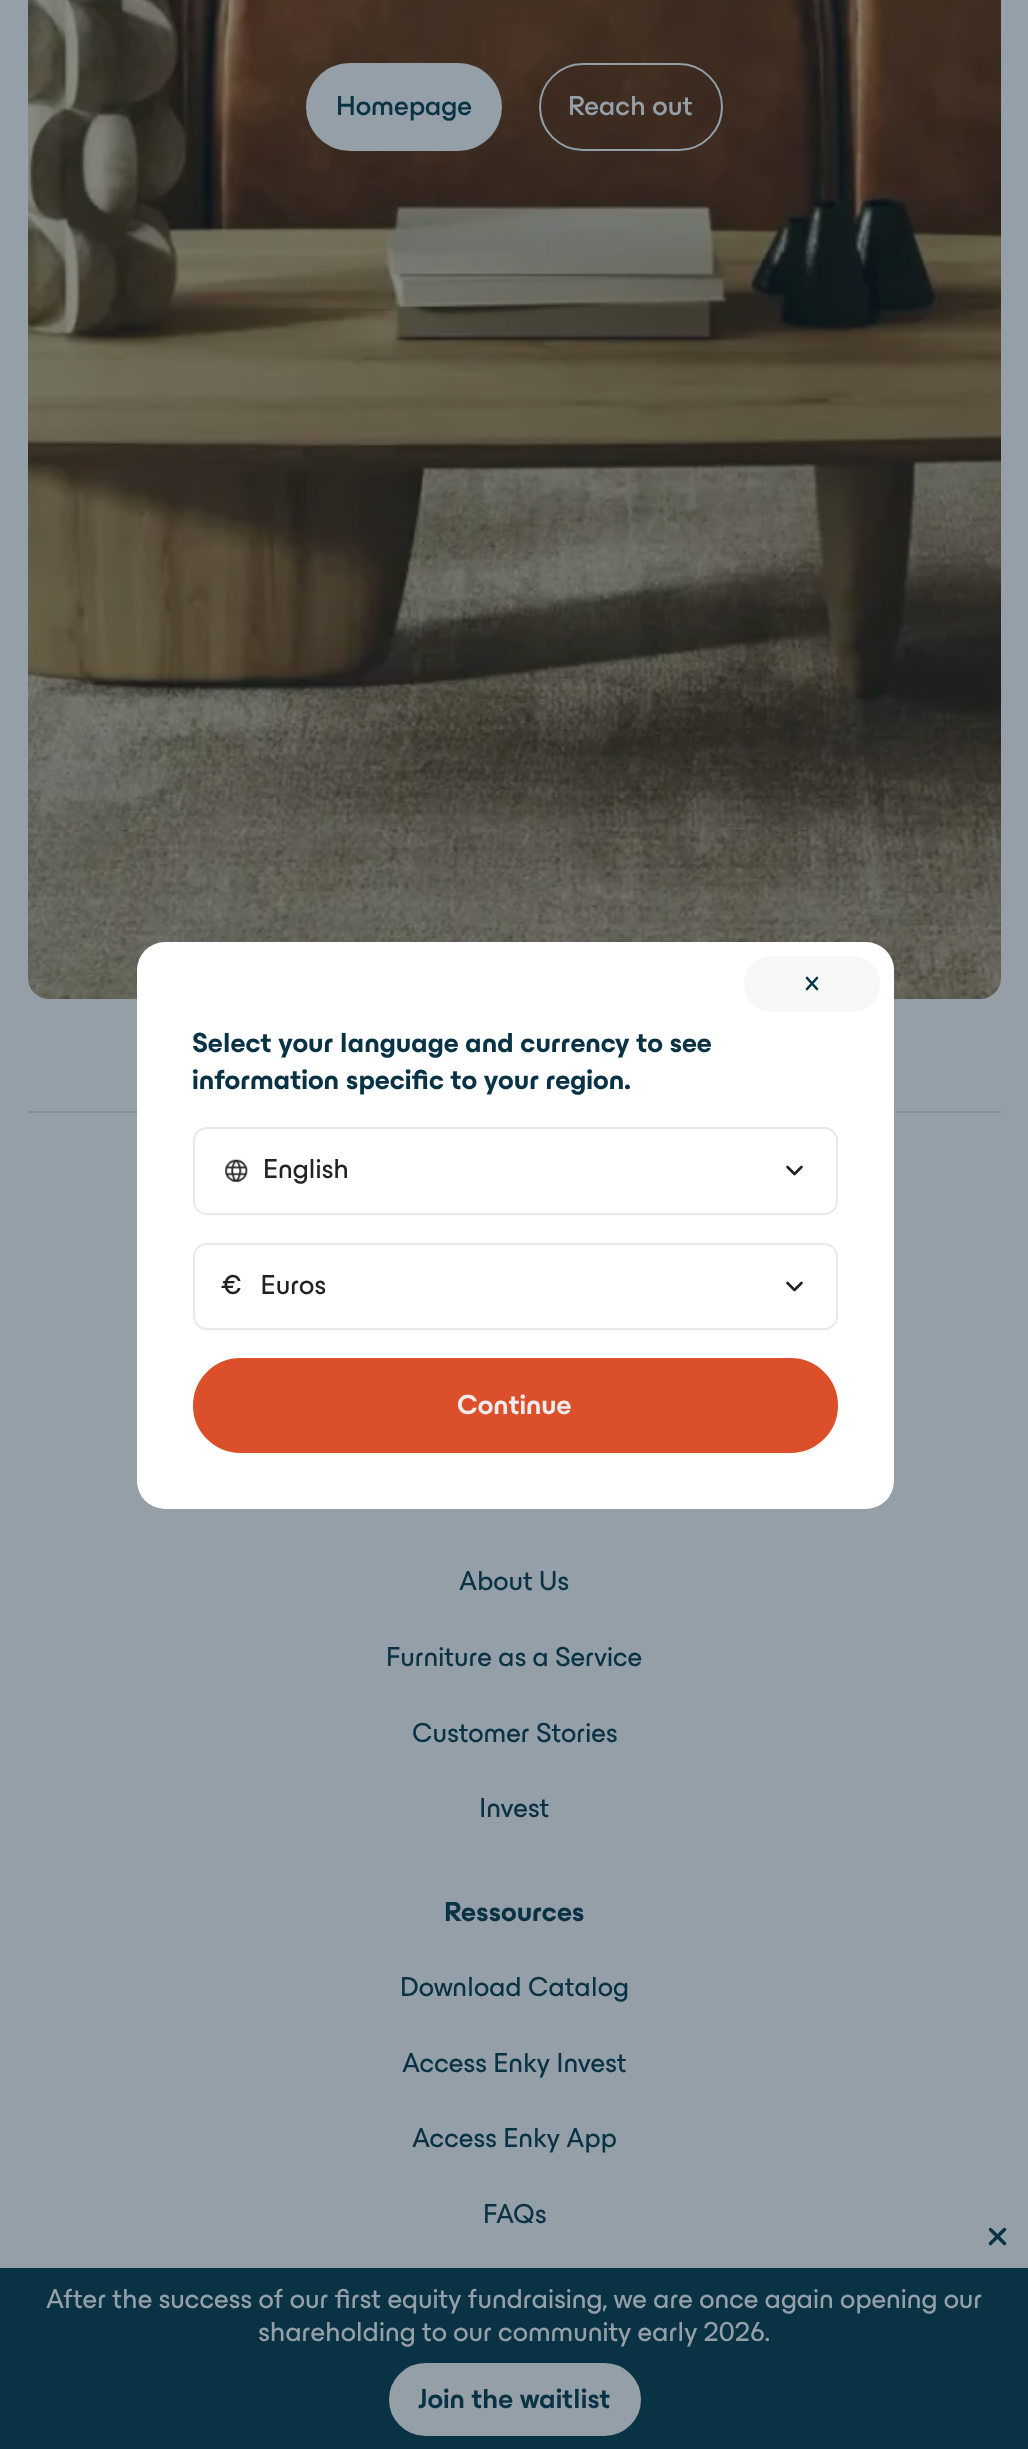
<!DOCTYPE html>
<meta charset="utf-8">
<style>body { margin: 0 } canvas { display: block }</style>
<canvas id="canvas" width="1028" height="2449"></canvas>
<img id="img1" src="images/1.png" hidden>
<img id="img2" src="images/2.png" hidden>
<script>
window.onload = function () {
    const canvas = document.getElementById('canvas');
    const context = canvas.getContext('2d');
    context.miterLimit = 4;
    context.fontKerning = 'normal';

    context.fillStyle = 'rgb(148, 159, 167)';
    context.fillRect(0, 0, 1028, 2449);
    context.drawImage(document.getElementById('img1'), 28, 0, 973, 999);
    context.fillStyle = 'rgba(5, 17, 26, 0.15)';
    context.beginPath();
    context.roundRect(28, -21, 973, 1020, 21);
    context.fill();
    context.fillStyle = 'rgb(148, 159, 167)';
    context.beginPath();
    context.roundRect(306, 63, 196, 88, 44);
    context.fill();
    context.beginPath();
    context.roundRect(540, 64, 182, 86, 43);
    context.strokeStyle = 'rgb(148, 159, 167)';
    context.lineWidth = 2;
    context.stroke();
    context.fillStyle = 'rgb(129, 143, 153)';
    context.fillRect(28, 1111, 973, 2);
    context.fillStyle = 'rgb(255, 255, 255)';
    context.beginPath();
    context.roundRect(137, 942, 757, 567, 28);
    context.fill();
    context.fillStyle = 'rgb(247, 247, 246)';
    context.beginPath();
    context.roundRect(744, 956, 136, 56, 28);
    context.fill();
    context.beginPath();
    context.moveTo(817, 978);
    context.lineTo(807, 989);
    context.moveTo(807, 978);
    context.lineTo(817, 989);
    context.strokeStyle = 'rgb(6, 54, 71)';
    context.lineWidth = 2.6;
    context.lineCap = 'round';
    context.lineJoin = 'round';
    context.stroke();
    context.beginPath();
    context.roundRect(194, 1128, 643, 86, 13);
    context.strokeStyle = 'rgb(231, 234, 236)';
    context.lineWidth = 2;
    context.lineJoin = 'miter';
    context.stroke();
    context.drawImage(document.getElementById('img2'), 224, 1159, 24, 23);
    context.beginPath();
    context.moveTo(787.5, 1167);
    context.lineTo(794.5, 1174);
    context.lineTo(801.5, 1167);
    context.strokeStyle = 'rgb(34, 34, 34)';
    context.lineWidth = 2.6;
    context.lineJoin = 'round';
    context.stroke();
    context.beginPath();
    context.roundRect(194, 1244, 643, 85, 13);
    context.strokeStyle = 'rgb(231, 234, 236)';
    context.lineWidth = 2;
    context.lineJoin = 'miter';
    context.stroke();
    context.beginPath();
    context.moveTo(787.5, 1283);
    context.lineTo(794.5, 1290);
    context.lineTo(801.5, 1283);
    context.strokeStyle = 'rgb(34, 34, 34)';
    context.lineWidth = 2.6;
    context.lineJoin = 'round';
    context.stroke();
    context.fillStyle = 'rgb(219, 80, 42)';
    context.beginPath();
    context.roundRect(194, 1359, 643, 93, 46.5);
    context.fill();
    context.strokeStyle = 'rgb(219, 80, 42)';
    context.lineWidth = 2;
    context.lineJoin = 'miter';
    context.stroke();
    context.fillStyle = 'rgb(9, 50, 68)';
    context.fillRect(0, 2268, 1028, 181);
    context.beginPath();
    context.moveTo(1004.5, 2229.5);
    context.lineTo(990.5, 2243.5);
    context.moveTo(990.5, 2229.5);
    context.lineTo(1004.5, 2243.5);
    context.strokeStyle = 'rgb(9, 50, 68)';
    context.lineWidth = 3.5;
    context.lineJoin = 'round';
    context.stroke();
    context.fillStyle = 'rgb(148, 159, 167)';
    context.beginPath();
    context.roundRect(390, 2364, 250, 71, 35.5);
    context.fill();
    context.strokeStyle = 'rgb(148, 159, 167)';
    context.lineWidth = 2;
    context.lineJoin = 'miter';
    context.stroke();
    context.font = '500 28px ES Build';
    context.fillStyle = 'rgb(9, 50, 68)';
    context.fillText('Homepage', 336, 115);
    context.fillStyle = 'rgb(148, 159, 167)';
    context.fillText('Reach out', 568, 115);
    context.font = 'bold 28px ES Build';
    context.fillStyle = 'rgb(9, 50, 68)';
    context.fillText('Select your language and currency to see', 192, 1052);
    context.fillText('information specific to your region.', 192, 1089);
    context.font = '28px ES Build';
    context.fillStyle = 'rgb(34, 34, 34)';
    context.fillText('English', 263, 1178);
    context.fillText('€   Euros', 221, 1294);
    context.font = '600 28px ES Build';
    context.fillStyle = 'rgb(238, 236, 236)';
    context.fillText('Continue', 457, 1414);
    context.font = '28px ES Build';
    context.fillStyle = 'rgb(148, 159, 167)';
    context.fillText('After the success of our first equity fundraising, we are once again opening our', 46, 2308);
    context.fillText('shareholding to our community early 2026.', 258, 2341);
    context.font = '600 28px ES Build';
    context.fillStyle = 'rgb(9, 50, 68)';
    context.fillText('Join the waitlist', 418, 2408);
    context.font = '28px ES Build';
    context.fillText('About Us', 459, 1590);
    context.fillText('Furniture as a Service', 386, 1666);
    context.fillText('Customer Stories', 412, 1742);
    context.fillText('Invest', 479, 1817);
    context.font = 'bold 28px ES Build';
    context.fillText('Ressources', 444, 1921);
    context.font = '28px ES Build';
    context.fillText('Download Catalog', 400, 1996);
    context.fillText('Access Enky Invest', 402, 2072);
    context.fillText('Access Enky App', 412, 2147);
    context.fillText('FAQs', 483, 2223);
};
</script>
